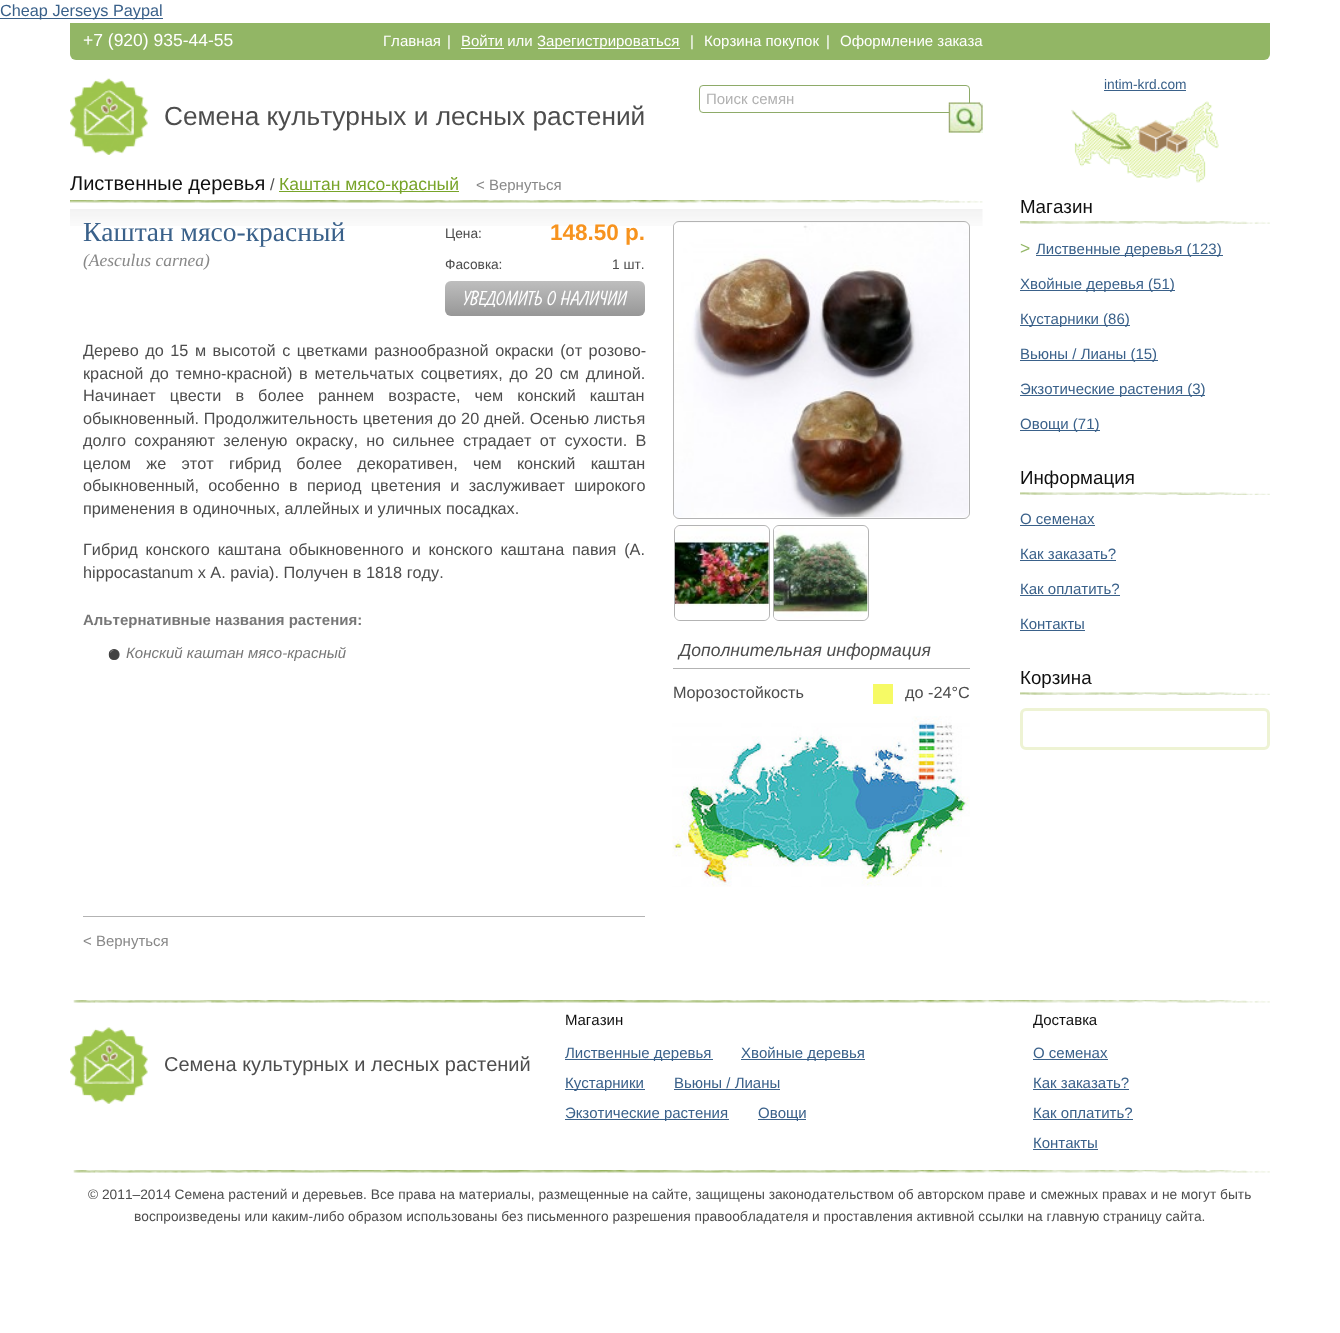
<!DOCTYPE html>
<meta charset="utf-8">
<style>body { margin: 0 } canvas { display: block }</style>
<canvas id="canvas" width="1340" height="1333"></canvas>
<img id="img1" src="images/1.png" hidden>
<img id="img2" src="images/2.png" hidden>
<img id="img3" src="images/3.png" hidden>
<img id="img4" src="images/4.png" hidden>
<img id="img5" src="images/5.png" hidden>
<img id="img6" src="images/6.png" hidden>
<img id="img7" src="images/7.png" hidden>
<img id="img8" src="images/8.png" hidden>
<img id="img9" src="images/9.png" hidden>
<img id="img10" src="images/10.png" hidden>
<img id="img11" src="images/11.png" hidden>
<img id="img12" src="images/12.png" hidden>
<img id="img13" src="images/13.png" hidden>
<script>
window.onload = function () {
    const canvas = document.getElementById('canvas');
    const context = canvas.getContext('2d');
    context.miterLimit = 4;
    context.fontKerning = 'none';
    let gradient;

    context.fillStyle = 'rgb(255, 255, 255)';
    context.fillRect(0, 0, 1340, 1333);
    context.fillStyle = 'rgb(58, 97, 138)';
    context.fillRect(0, 18, 163, 1);
    context.fillStyle = 'rgb(146, 182, 101)';
    context.beginPath();
    context.roundRect(70, 23, 1200, 37, [0, 0, 6, 6]);
    context.fill();
    context.fillStyle = 'rgb(255, 255, 255)';
    context.fillRect(461, 48, 43, 1);
    context.fillRect(538, 48, 142, 1);
    context.beginPath();
    context.roundRect(699.5, 85.5, 270, 27, 3.5);
    context.strokeStyle = 'rgb(142, 171, 105)';
    context.stroke();
    context.fillStyle = 'rgb(231, 247, 221)';
    context.fillRect(949, 103, 34, 30);
    context.drawImage(document.getElementById('img1'), 948, 102, 35, 31);
    context.drawImage(document.getElementById('img2'), 70, 78, 78, 77);
    context.drawImage(document.getElementById('img3'), 70, 200, 913, 3);
    context.fillStyle = 'rgb(120, 164, 41)';
    context.fillRect(279, 191, 180, 1);
    context.drawImage(document.getElementById('img4'), 70, 209, 913, 17);
    gradient = context.createLinearGradient(545, 281, 545, 316);
    gradient.addColorStop(0, 'rgb(190, 190, 190)');
    gradient.addColorStop(1, 'rgb(151, 151, 151)');
    context.fillStyle = gradient;
    context.beginPath();
    context.roundRect(445, 281, 200, 35, 6);
    context.fill();
    context.fillStyle = 'rgb(179, 179, 179)';
    context.fillRect(83, 916, 562, 1);
    context.beginPath();
    context.roundRect(673.5, 221.5, 296, 297, 5.5);
    context.strokeStyle = 'rgb(179, 179, 179)';
    context.stroke();
    context.drawImage(document.getElementById('img5'), 673, 222, 296, 296);
    context.beginPath();
    context.roundRect(674.5, 525.5, 95, 95, 5.5);
    context.stroke();
    context.beginPath();
    context.roundRect(773.5, 525.5, 95, 95, 5.5);
    context.stroke();
    context.drawImage(document.getElementById('img6'), 675, 526, 94, 94);
    context.drawImage(document.getElementById('img7'), 773, 526, 95, 94);
    context.fillRect(673, 668, 297, 1);
    context.fillStyle = 'rgb(246, 250, 101)';
    context.fillRect(873, 684, 20, 20);
    context.drawImage(document.getElementById('img8'), 672, 716, 298, 171);
    context.drawImage(document.getElementById('img9'), 1071, 101, 148, 82);
    context.fillStyle = 'rgb(58, 97, 138)';
    context.fillRect(1104, 90, 82, 1);
    context.drawImage(document.getElementById('img10'), 1020, 221, 250, 3);
    context.fillRect(1036, 255, 187, 1);
    context.fillRect(1020, 290, 155, 1);
    context.fillRect(1020, 325, 110, 1);
    context.fillRect(1020, 360, 138, 1);
    context.fillRect(1020, 395, 185, 1);
    context.fillRect(1020, 430, 80, 1);
    context.drawImage(document.getElementById('img11'), 1020, 492, 250, 3);
    context.fillRect(1020, 525, 75, 1);
    context.fillRect(1020, 560, 96, 1);
    context.fillRect(1020, 595, 100, 1);
    context.fillRect(1020, 630, 65, 1);
    context.drawImage(document.getElementById('img11'), 1020, 692, 250, 3);
    context.beginPath();
    context.roundRect(1021.5, 709.5, 247, 39, 4.5);
    context.strokeStyle = 'rgb(238, 243, 212)';
    context.lineWidth = 3;
    context.stroke();
    context.drawImage(document.getElementById('img12'), 73, 1000, 1197, 3);
    context.drawImage(document.getElementById('img13'), 70, 1027, 78, 77);
    context.fillRect(565, 1059, 148, 1);
    context.fillRect(741, 1059, 124, 1);
    context.fillRect(565, 1089, 80, 1);
    context.fillRect(674, 1089, 106, 1);
    context.fillRect(565, 1119, 164, 1);
    context.fillRect(758, 1119, 48, 1);
    context.fillRect(1033, 1059, 75, 1);
    context.fillRect(1033, 1089, 96, 1);
    context.fillRect(1033, 1119, 100, 1);
    context.fillRect(1033, 1149, 65, 1);
    context.drawImage(document.getElementById('img12'), 73, 1170, 1197, 3);
    context.font = '16.25px Liberation Sans';
    context.fillText('Cheap Jerseys Paypal', 0, 16);
    context.font = '17.5px Liberation Sans';
    context.fillStyle = 'rgb(255, 255, 255)';
    context.fillText('+7 (920) 935-44-55', 83, 46);
    context.font = '15px Liberation Sans';
    context.fillText('Главная', 383, 46);
    context.fillText('|', 447, 46);
    context.fillText('Войти или', 461, 46);
    context.fillText('Зарегистрироваться', 537, 46);
    context.fillText('|', 690, 46);
    context.fillText('Корзина покупок', 704, 46);
    context.fillText('|', 826, 46);
    context.fillText('Оформление заказа', 840, 46);
    context.fillStyle = 'rgb(177, 177, 177)';
    context.fillText('Поиск семян', 706, 104);
    context.font = '26.25px Liberation Sans';
    context.fillStyle = 'rgb(77, 77, 77)';
    context.fillText('Семена культурных и лесных растений', 164, 125);
    context.font = '20px Liberation Sans';
    context.fillStyle = 'rgb(16, 16, 16)';
    context.fillText('Лиственные деревья', 70, 190);
    context.font = '16.25px Liberation Sans';
    context.fillStyle = 'rgb(77, 77, 77)';
    context.fillText('/', 270, 190);
    context.font = '17.5px Liberation Sans';
    context.fillStyle = 'rgb(120, 164, 41)';
    context.fillText('Каштан мясо-красный', 279, 190);
    context.font = '15px Liberation Sans';
    context.fillStyle = 'rgb(136, 136, 136)';
    context.fillText('< Вернуться', 476, 190);
    context.font = '27.5px Liberation Serif';
    context.fillStyle = 'rgb(58, 97, 138)';
    context.fillText('Каштан мясо-красный', 83, 241);
    context.font = 'italic 17.5px Liberation Serif';
    context.fillStyle = 'rgb(136, 136, 136)';
    context.fillText('(Aesculus carnea)', 83, 266);
    context.font = '13.75px Liberation Sans';
    context.fillStyle = 'rgb(77, 77, 77)';
    context.fillText('Цена:', 445, 238);
    context.font = 'bold 22.5px Liberation Sans';
    context.fillStyle = 'rgb(247, 147, 30)';
    context.fillText('148.50 р.', 550, 240);
    context.font = '13.75px Liberation Sans';
    context.fillStyle = 'rgb(77, 77, 77)';
    context.fillText('Фасовка:', 445, 269);
    context.fillText('1 шт.', 612, 269);
    context.font = 'bold 20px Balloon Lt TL';
    context.fillStyle = 'rgb(255, 255, 255)';
    context.fillText('Уведомить о наличии', 463, 305);
    context.wordSpacing = '2px';
    context.font = '16.25px Liberation Sans';
    context.fillStyle = 'rgb(77, 77, 77)';
    context.fillText('Дерево до 15 м высотой с цветками разнообразной окраски (от розово-', 83, 356);
    context.wordSpacing = '2.25px';
    context.fillText('красной до темно-красной) в метельчатых соцветиях, до 20 см длиной.', 83, 379);
    context.wordSpacing = '9.5px';
    context.fillText('Начинает цвести в более раннем возрасте, чем конский каштан', 83, 401);
    context.wordSpacing = '0.25px';
    context.fillText('обыкновенный. Продолжительность цветения до 20 дней. Осенью листья', 83, 424);
    context.wordSpacing = '3.75px';
    context.fillText('долго сохраняют зеленую окраску, но сильнее страдает от сухости. В', 83, 446);
    context.wordSpacing = '10.75px';
    context.fillText('целом же этот гибрид более декоративен, чем конский каштан', 83, 469);
    context.wordSpacing = '4.75px';
    context.fillText('обыкновенный, особенно в период цветения и заслуживает широкого', 83, 491);
    context.wordSpacing = '0px';
    context.fillText('применения в одиночных, аллейных и уличных посадках.', 83, 514);
    context.wordSpacing = '3.25px';
    context.fillText('Гибрид конского каштана обыкновенного и конского каштана павия (A.', 83, 555);
    context.wordSpacing = '0px';
    context.fillText('hippocastanum x A. pavia). Получен в 1818 году.', 83, 578);
    context.font = 'bold 15px Liberation Sans';
    context.fillStyle = 'rgb(119, 119, 119)';
    context.fillText('Альтернативные названия растения:', 83, 625);
    context.font = '10px Noto Color Emoji';
    context.fillText('⚫', 108, 658);
    context.font = 'italic 15px Liberation Sans';
    context.fillText('Конский каштан мясо-красный', 126, 658);
    context.font = '15px Liberation Sans';
    context.fillStyle = 'rgb(136, 136, 136)';
    context.fillText('< Вернуться', 83, 946);
    context.font = 'italic 17.5px Liberation Sans';
    context.fillStyle = 'rgb(77, 77, 77)';
    context.fillText('Дополнительная информация', 679, 656);
    context.font = '16.25px Liberation Sans';
    context.fillText('Морозостойкость', 673, 698);
    context.fillText('до -24°C', 905, 698);
    context.font = '13.75px Liberation Sans';
    context.fillStyle = 'rgb(58, 97, 138)';
    context.fillText('intim-krd.com', 1104, 89);
    context.font = '18.75px Liberation Sans';
    context.fillStyle = 'rgb(16, 16, 16)';
    context.fillText('Магазин', 1020, 213);
    context.font = '17.5px Liberation Sans';
    context.fillStyle = 'rgb(146, 182, 101)';
    context.fillText('>', 1020, 254);
    context.font = '15px Liberation Sans';
    context.fillStyle = 'rgb(58, 97, 138)';
    context.fillText('Лиственные деревья (123)', 1036, 254);
    context.fillText('Хвойные деревья (51)', 1020, 289);
    context.fillText('Кустарники (86)', 1020, 324);
    context.fillText('Вьюны / Лианы (15)', 1020, 359);
    context.fillText('Экзотические растения (3)', 1020, 394);
    context.fillText('Овощи (71)', 1020, 429);
    context.font = '18.75px Liberation Sans';
    context.fillStyle = 'rgb(16, 16, 16)';
    context.fillText('Информация', 1020, 484);
    context.font = '15px Liberation Sans';
    context.fillStyle = 'rgb(58, 97, 138)';
    context.fillText('О семенах', 1020, 524);
    context.fillText('Как заказать?', 1020, 559);
    context.fillText('Как оплатить?', 1020, 594);
    context.fillText('Контакты', 1020, 629);
    context.font = '18.75px Liberation Sans';
    context.fillStyle = 'rgb(16, 16, 16)';
    context.fillText('Корзина', 1020, 684);
    context.font = '20px Liberation Sans';
    context.fillStyle = 'rgb(77, 77, 77)';
    context.fillText('Семена культурных и лесных растений', 164, 1071);
    context.font = '15px Liberation Sans';
    context.fillStyle = 'rgb(16, 16, 16)';
    context.fillText('Магазин', 565, 1025);
    context.fillStyle = 'rgb(58, 97, 138)';
    context.fillText('Лиственные деревья', 565, 1058);
    context.fillText('Хвойные деревья', 741, 1058);
    context.fillText('Кустарники', 565, 1088);
    context.fillText('Вьюны / Лианы', 674, 1088);
    context.fillText('Экзотические растения', 565, 1118);
    context.fillText('Овощи', 758, 1118);
    context.fillStyle = 'rgb(16, 16, 16)';
    context.fillText('Доставка', 1033, 1025);
    context.fillStyle = 'rgb(58, 97, 138)';
    context.fillText('О семенах', 1033, 1058);
    context.fillText('Как заказать?', 1033, 1088);
    context.fillText('Как оплатить?', 1033, 1118);
    context.fillText('Контакты', 1033, 1148);
    context.font = '13.75px Liberation Sans';
    context.fillStyle = 'rgb(77, 77, 77)';
    context.fillText('© 2011–2014 Семена растений и деревьев. Все права на материалы, размещенные на сайте, защищены законодательством', 88, 1199);
    context.fillText('об авторском праве и смежных правах и не могут быть', 898, 1199);
    context.fillText('воспроизведены или каким-либо образом использованы без письменного разрешения правообладателя', 134, 1221);
    context.fillText('и проставления активной ссылки на главную страницу сайта.', 812, 1221);
};
</script>
